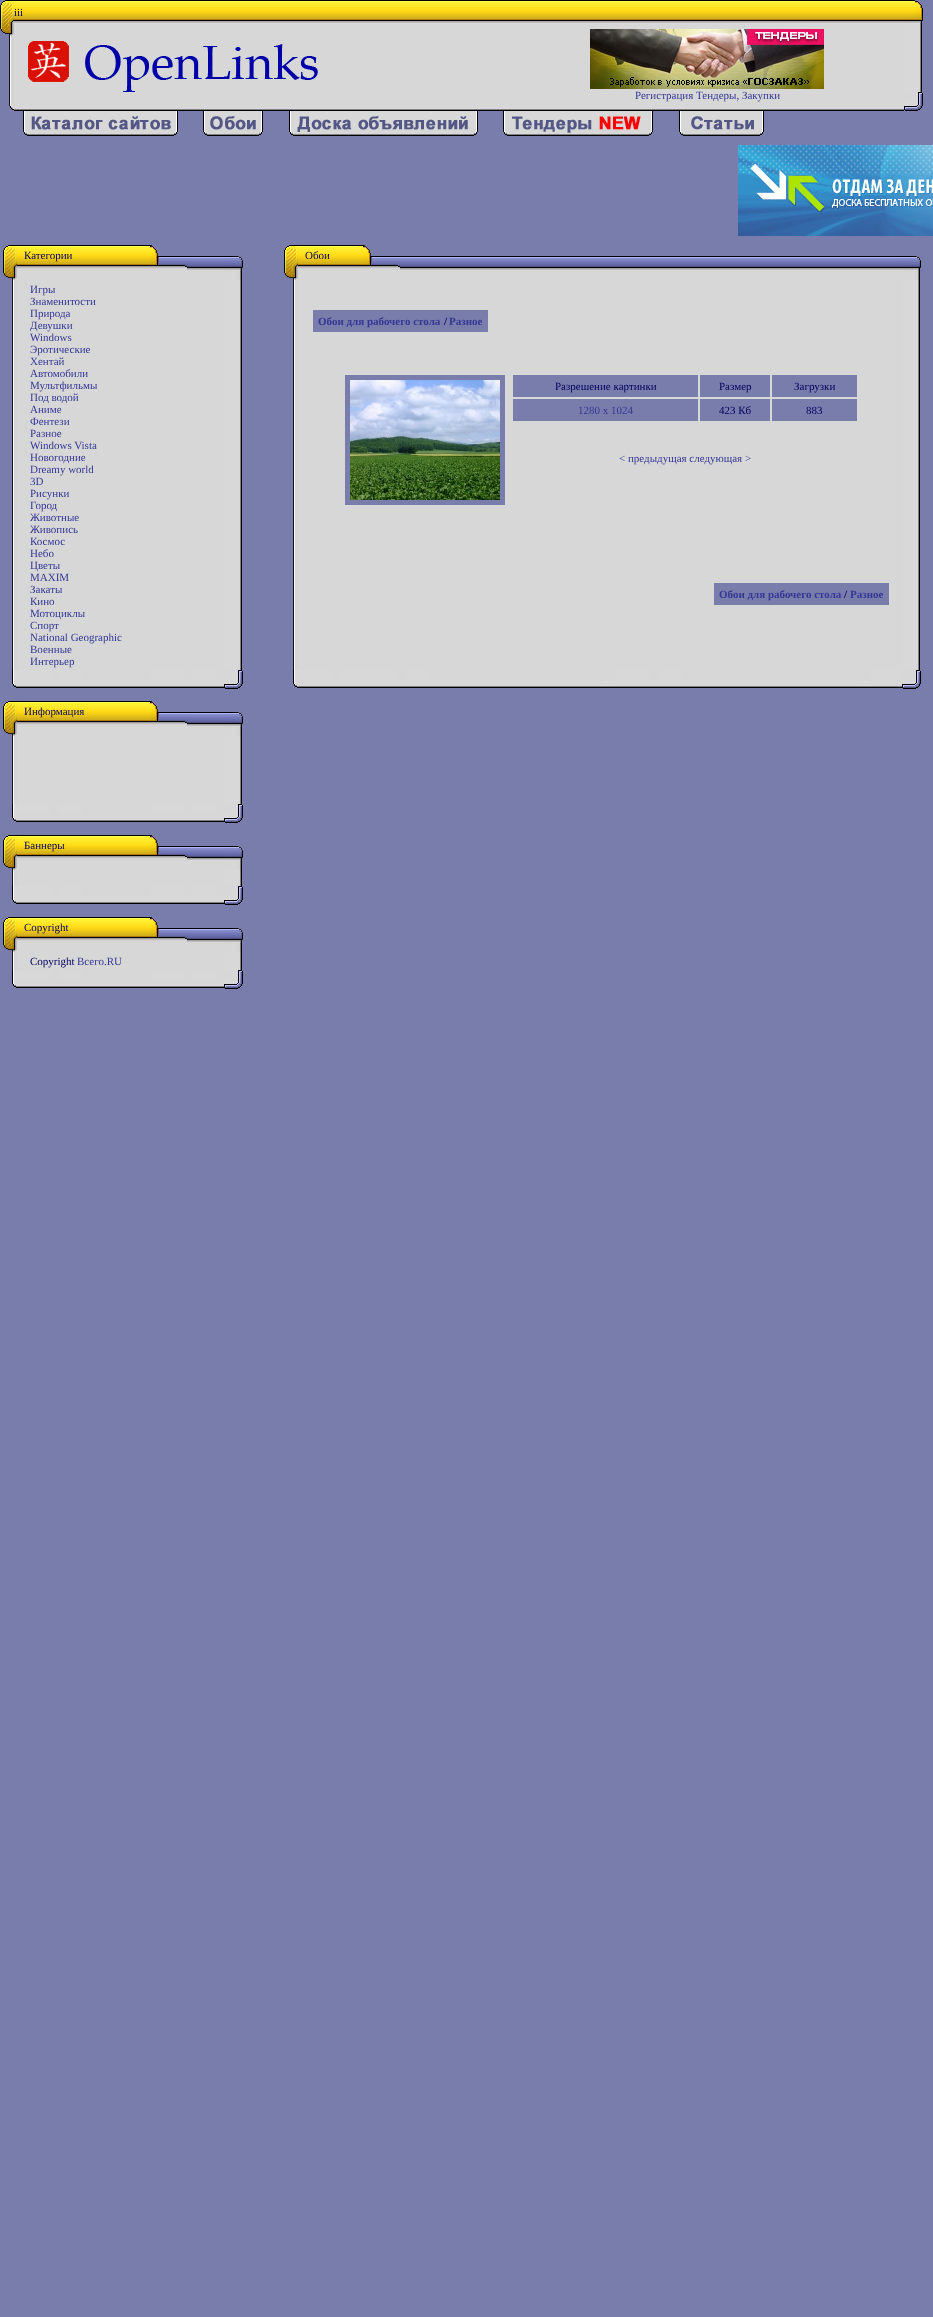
<!DOCTYPE html>
<meta charset="utf-8">
<style>body { margin: 0 } canvas { display: block }</style>
<canvas id="canvas" width="933" height="2317"></canvas>
<img id="img1" src="images/1.png" hidden>
<img id="img2" src="images/2.png" hidden>
<img id="img3" src="images/3.png" hidden>
<img id="img4" src="images/4.png" hidden>
<img id="img5" src="images/5.png" hidden>
<img id="img6" src="images/6.png" hidden>
<img id="img7" src="images/7.png" hidden>
<img id="img8" src="images/8.png" hidden>
<img id="img9" src="images/9.png" hidden>
<img id="img10" src="images/10.png" hidden>
<img id="img11" src="images/11.png" hidden>
<img id="img12" src="images/12.png" hidden>
<img id="img13" src="images/13.png" hidden>
<img id="img14" src="images/14.png" hidden>
<img id="img15" src="images/15.png" hidden>
<img id="img16" src="images/16.png" hidden>
<img id="img17" src="images/17.png" hidden>
<img id="img18" src="images/18.png" hidden>
<img id="img19" src="images/19.png" hidden>
<img id="img20" src="images/20.png" hidden>
<img id="img21" src="images/21.png" hidden>
<img id="img22" src="images/22.png" hidden>
<img id="img23" src="images/23.png" hidden>
<img id="img24" src="images/24.png" hidden>
<img id="img25" src="images/25.png" hidden>
<img id="img26" src="images/26.png" hidden>
<img id="img27" src="images/27.png" hidden>
<img id="img28" src="images/28.png" hidden>
<img id="img29" src="images/29.png" hidden>
<img id="img30" src="images/30.png" hidden>
<img id="img31" src="images/31.png" hidden>
<img id="img32" src="images/32.png" hidden>
<img id="img33" src="images/33.png" hidden>
<img id="img34" src="images/34.png" hidden>
<img id="img35" src="images/35.png" hidden>
<img id="img36" src="images/36.png" hidden>
<img id="img37" src="images/37.png" hidden>
<img id="img38" src="images/38.png" hidden>
<img id="img39" src="images/39.png" hidden>
<script>
window.onload = function () {
    const canvas = document.getElementById('canvas');
    const context = canvas.getContext('2d');
    context.miterLimit = 4;
    context.fontKerning = 'normal';

    context.fillStyle = 'rgb(121, 125, 172)';
    context.fillRect(0, 0, 933, 2317);
    context.drawImage(document.getElementById('img1'), 0, 0, 14, 36);
    context.drawImage(document.getElementById('img2'), 14, 0, 890, 23);
    context.drawImage(document.getElementById('img3'), 904, 0, 19, 23);
    context.drawImage(document.getElementById('img4'), 9, 36, 5, 70);
    context.drawImage(document.getElementById('img5'), 904, 23, 18, 42);
    context.fillStyle = 'rgb(215, 215, 215)';
    context.fillRect(14, 23, 890, 83);
    context.drawImage(document.getElementById('img6'), 28, 41, 290, 51);
    context.drawImage(document.getElementById('img7'), 590, 29, 234, 60);
    context.drawImage(document.getElementById('img8'), 904, 65, 18, 27);
    context.drawImage(document.getElementById('img9'), 904, 92, 19, 19);
    context.drawImage(document.getElementById('img10'), 10, 106, 4, 4);
    context.drawImage(document.getElementById('img11'), 14, 106, 890, 5);
    context.drawImage(document.getElementById('img12'), 23, 111, 155, 25);
    context.drawImage(document.getElementById('img13'), 203, 111, 60, 25);
    context.drawImage(document.getElementById('img14'), 289, 111, 189, 25);
    context.drawImage(document.getElementById('img15'), 503, 111, 150, 25);
    context.drawImage(document.getElementById('img16'), 679, 111, 85, 25);
    context.drawImage(document.getElementById('img17'), 738, 145, 195, 91);
    context.drawImage(document.getElementById('img18'), 3, 245, 14, 35);
    context.drawImage(document.getElementById('img19'), 17, 245, 133, 35);
    context.drawImage(document.getElementById('img20'), 150, 245, 8, 35);
    context.drawImage(document.getElementById('img21'), 158, 256, 29, 24);
    context.drawImage(document.getElementById('img22'), 187, 256, 37, 24);
    context.drawImage(document.getElementById('img23'), 224, 256, 19, 24);
    context.drawImage(document.getElementById('img24'), 12, 280, 5, 390);
    context.fillRect(17, 280, 207, 390);
    context.drawImage(document.getElementById('img25'), 224, 280, 18, 390);
    context.drawImage(document.getElementById('img26'), 12, 670, 5, 18);
    context.drawImage(document.getElementById('img27'), 17, 670, 133, 18);
    context.drawImage(document.getElementById('img28'), 150, 670, 74, 18);
    context.drawImage(document.getElementById('img9'), 224, 670, 19, 19);
    context.drawImage(document.getElementById('img18'), 3, 701, 14, 35);
    context.drawImage(document.getElementById('img19'), 17, 701, 133, 35);
    context.drawImage(document.getElementById('img20'), 150, 701, 8, 35);
    context.drawImage(document.getElementById('img21'), 158, 712, 29, 24);
    context.drawImage(document.getElementById('img22'), 187, 712, 37, 24);
    context.drawImage(document.getElementById('img23'), 224, 712, 19, 24);
    context.drawImage(document.getElementById('img29'), 12, 736, 5, 68);
    context.fillRect(17, 736, 207, 68);
    context.drawImage(document.getElementById('img30'), 224, 736, 18, 68);
    context.drawImage(document.getElementById('img26'), 12, 804, 5, 18);
    context.drawImage(document.getElementById('img27'), 17, 804, 133, 18);
    context.drawImage(document.getElementById('img28'), 150, 804, 74, 18);
    context.drawImage(document.getElementById('img9'), 224, 804, 19, 19);
    context.drawImage(document.getElementById('img18'), 3, 835, 14, 35);
    context.drawImage(document.getElementById('img19'), 17, 835, 133, 35);
    context.drawImage(document.getElementById('img20'), 150, 835, 8, 35);
    context.drawImage(document.getElementById('img21'), 158, 846, 29, 24);
    context.drawImage(document.getElementById('img22'), 187, 846, 37, 24);
    context.drawImage(document.getElementById('img23'), 224, 846, 19, 24);
    context.drawImage(document.getElementById('img31'), 12, 870, 5, 16);
    context.fillRect(17, 870, 207, 16);
    context.drawImage(document.getElementById('img32'), 224, 870, 18, 16);
    context.drawImage(document.getElementById('img26'), 12, 886, 5, 18);
    context.drawImage(document.getElementById('img27'), 17, 886, 133, 18);
    context.drawImage(document.getElementById('img28'), 150, 886, 74, 18);
    context.drawImage(document.getElementById('img9'), 224, 886, 19, 19);
    context.drawImage(document.getElementById('img18'), 3, 917, 14, 35);
    context.drawImage(document.getElementById('img19'), 17, 917, 133, 35);
    context.drawImage(document.getElementById('img20'), 150, 917, 8, 35);
    context.drawImage(document.getElementById('img21'), 158, 928, 29, 24);
    context.drawImage(document.getElementById('img22'), 187, 928, 37, 24);
    context.drawImage(document.getElementById('img23'), 224, 928, 19, 24);
    context.drawImage(document.getElementById('img33'), 12, 952, 5, 18);
    context.fillRect(17, 952, 207, 18);
    context.drawImage(document.getElementById('img34'), 224, 952, 18, 18);
    context.drawImage(document.getElementById('img26'), 12, 970, 5, 18);
    context.drawImage(document.getElementById('img27'), 17, 970, 133, 18);
    context.drawImage(document.getElementById('img28'), 150, 970, 74, 18);
    context.drawImage(document.getElementById('img9'), 224, 970, 19, 19);
    context.drawImage(document.getElementById('img18'), 284, 245, 14, 35);
    context.drawImage(document.getElementById('img35'), 298, 245, 65, 35);
    context.drawImage(document.getElementById('img20'), 363, 245, 8, 35);
    context.drawImage(document.getElementById('img21'), 371, 256, 29, 24);
    context.drawImage(document.getElementById('img36'), 400, 256, 502, 24);
    context.drawImage(document.getElementById('img23'), 902, 256, 19, 24);
    context.drawImage(document.getElementById('img24'), 293, 280, 5, 390);
    context.fillRect(298, 280, 604, 390);
    context.fillStyle = 'rgb(121, 125, 172)';
    context.fillRect(313, 310, 175, 22);
    context.fillRect(345, 375, 160, 130);
    context.drawImage(document.getElementById('img37'), 350, 380, 150, 120);
    context.fillRect(513, 375, 185, 22);
    context.fillRect(700, 375, 70, 22);
    context.fillRect(772, 375, 85, 22);
    context.fillRect(513, 399, 185, 22);
    context.fillRect(700, 399, 70, 22);
    context.fillRect(772, 399, 85, 22);
    context.fillRect(714, 583, 175, 22);
    context.drawImage(document.getElementById('img25'), 902, 280, 18, 390);
    context.drawImage(document.getElementById('img26'), 293, 670, 5, 18);
    context.drawImage(document.getElementById('img38'), 298, 670, 65, 18);
    context.drawImage(document.getElementById('img39'), 363, 670, 539, 18);
    context.drawImage(document.getElementById('img9'), 902, 670, 19, 19);
    context.font = '11px Liberation Serif';
    context.fillStyle = 'rgb(0, 0, 94)';
    context.fillText('iii', 14, 16);
    context.fillStyle = 'rgb(53, 55, 149)';
    context.fillText('Регистрация Тендеры, Закупки', 635, 99);
    context.fillStyle = 'rgb(0, 0, 94)';
    context.fillText('Категории', 24, 259);
    context.fillStyle = 'rgb(53, 55, 149)';
    context.fillText('Игры', 30, 293);
    context.fillText('Знаменитости', 30, 305);
    context.fillText('Природа', 30, 317);
    context.fillText('Девушки', 30, 329);
    context.fillText('Windows', 30, 341);
    context.fillText('Эротические', 30, 353);
    context.fillText('Хентай', 30, 365);
    context.fillText('Автомобили', 30, 377);
    context.fillText('Мультфильмы', 30, 389);
    context.fillText('Под водой', 30, 401);
    context.fillText('Аниме', 30, 413);
    context.fillText('Фентези', 30, 425);
    context.fillText('Разное', 30, 437);
    context.fillText('Windows Vista', 30, 449);
    context.fillText('Новогодние', 30, 461);
    context.fillText('Dreamy world', 30, 473);
    context.fillText('3D', 30, 485);
    context.fillText('Рисунки', 30, 497);
    context.fillText('Город', 30, 509);
    context.fillText('Животные', 30, 521);
    context.fillText('Живопись', 30, 533);
    context.fillText('Космос', 30, 545);
    context.fillText('Небо', 30, 557);
    context.fillText('Цветы', 30, 569);
    context.fillText('MAXIM', 30, 581);
    context.fillText('Закаты', 30, 593);
    context.fillText('Кино', 30, 605);
    context.fillText('Мотоциклы', 30, 617);
    context.fillText('Спорт', 30, 629);
    context.fillText('National Geographic', 30, 641);
    context.fillText('Военные', 30, 653);
    context.fillText('Интерьер', 30, 665);
    context.fillStyle = 'rgb(0, 0, 94)';
    context.fillText('Информация', 24, 715);
    context.fillText('Баннеры', 24, 849);
    context.fillText('Copyright', 24, 931);
    context.fillText('Copyright', 30, 965);
    context.fillStyle = 'rgb(53, 55, 149)';
    context.fillText('Всего.RU', 77, 965);
    context.fillStyle = 'rgb(0, 0, 94)';
    context.fillText('Обои', 305, 259);
    context.font = 'bold 11px Liberation Serif';
    context.fillStyle = 'rgb(53, 55, 149)';
    context.fillText('Обои для рабочего стола', 318, 325);
    context.fillStyle = 'rgb(0, 0, 94)';
    context.fillText('/', 444, 325);
    context.fillStyle = 'rgb(53, 55, 149)';
    context.fillText('Разное', 449, 325);
    context.font = '11px Liberation Serif';
    context.fillStyle = 'rgb(0, 0, 94)';
    context.fillText('Разрешение картинки', 555, 390);
    context.fillText('Размер', 719, 390);
    context.fillText('Загрузки', 794, 390);
    context.fillStyle = 'rgb(53, 55, 149)';
    context.fillText('1280 x 1024', 578, 414);
    context.fillStyle = 'rgb(0, 0, 94)';
    context.fillText('423 Кб', 719, 414);
    context.fillText('883', 806, 414);
    context.fillStyle = 'rgb(53, 55, 149)';
    context.fillText('< предыдущая следующая >', 619, 462);
    context.font = 'bold 11px Liberation Serif';
    context.fillText('Обои для рабочего стола', 719, 598);
    context.fillStyle = 'rgb(0, 0, 94)';
    context.fillText('/', 844, 598);
    context.fillStyle = 'rgb(53, 55, 149)';
    context.fillText('Разное', 850, 598);
};
</script>
